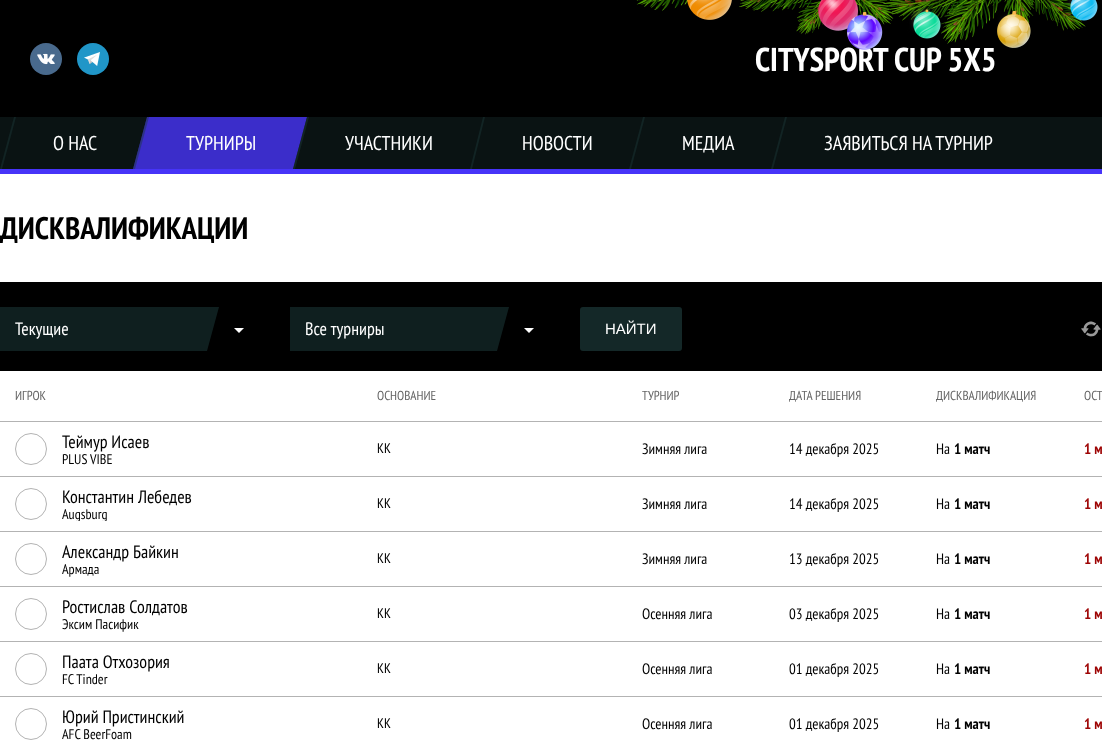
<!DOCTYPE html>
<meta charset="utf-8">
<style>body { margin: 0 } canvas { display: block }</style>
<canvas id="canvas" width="1102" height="742"></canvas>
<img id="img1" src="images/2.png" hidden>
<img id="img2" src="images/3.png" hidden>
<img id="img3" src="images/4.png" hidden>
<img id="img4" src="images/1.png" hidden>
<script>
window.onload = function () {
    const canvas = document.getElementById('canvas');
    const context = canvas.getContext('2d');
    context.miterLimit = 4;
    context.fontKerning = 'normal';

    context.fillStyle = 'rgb(0, 0, 0)';
    context.fillRect(0, 0, 1102, 742);
    context.fillStyle = 'rgb(73, 106, 141)';
    context.beginPath();
    context.arc(46, 59, 16, 0, 2 * Math.PI);
    context.fill();
    context.drawImage(document.getElementById('img1'), 37, 53, 18, 12);
    context.fillStyle = 'rgb(32, 150, 200)';
    context.beginPath();
    context.arc(93, 59, 16, 0, 2 * Math.PI);
    context.fill();
    context.drawImage(document.getElementById('img2'), 84, 52, 16, 14);
    context.fillStyle = 'rgb(10, 19, 19)';
    context.fillRect(0, 117, 1102, 52);
    context.fillStyle = 'rgb(18, 36, 36)';
    context.beginPath();
    context.moveTo(14, 117);
    context.lineTo(16, 117);
    context.lineTo(2, 169);
    context.lineTo(0, 169);
    context.closePath();
    context.fill();
    context.fillStyle = 'rgb(59, 45, 202)';
    context.beginPath();
    context.moveTo(147, 117);
    context.lineTo(307, 117);
    context.lineTo(293, 169);
    context.lineTo(133, 169);
    context.closePath();
    context.fill();
    context.fillStyle = 'rgba(28, 57, 57, 0.45)';
    context.beginPath();
    context.moveTo(147, 117);
    context.lineTo(149, 117);
    context.lineTo(135, 169);
    context.lineTo(133, 169);
    context.closePath();
    context.fill();
    context.beginPath();
    context.moveTo(307, 117);
    context.lineTo(309, 117);
    context.lineTo(295, 169);
    context.lineTo(293, 169);
    context.closePath();
    context.fill();
    context.fillStyle = 'rgb(18, 36, 36)';
    context.beginPath();
    context.moveTo(483, 117);
    context.lineTo(485, 117);
    context.lineTo(472, 169);
    context.lineTo(470, 169);
    context.closePath();
    context.fill();
    context.beginPath();
    context.moveTo(643, 117);
    context.lineTo(645, 117);
    context.lineTo(631, 169);
    context.lineTo(629, 169);
    context.closePath();
    context.fill();
    context.beginPath();
    context.moveTo(785, 117);
    context.lineTo(787, 117);
    context.lineTo(773, 169);
    context.lineTo(771, 169);
    context.closePath();
    context.fill();
    context.fillStyle = 'rgb(71, 52, 248)';
    context.fillRect(0, 169, 1102, 5);
    context.fillStyle = 'rgb(255, 255, 255)';
    context.fillRect(0, 174, 1102, 108);
    context.fillStyle = 'rgb(15, 31, 31)';
    context.fillRect(0, 307, 197, 44);
    context.beginPath();
    context.moveTo(197, 307);
    context.lineTo(219, 307);
    context.lineTo(207, 351);
    context.lineTo(197, 351);
    context.closePath();
    context.fill();
    context.fillStyle = 'rgb(255, 255, 255)';
    context.beginPath();
    context.moveTo(234, 328);
    context.lineTo(244, 328);
    context.lineTo(239, 333);
    context.closePath();
    context.fill();
    context.fillStyle = 'rgb(15, 31, 31)';
    context.fillRect(290, 307, 197, 44);
    context.beginPath();
    context.moveTo(487, 307);
    context.lineTo(509, 307);
    context.lineTo(497, 351);
    context.lineTo(487, 351);
    context.closePath();
    context.fill();
    context.fillStyle = 'rgb(255, 255, 255)';
    context.beginPath();
    context.moveTo(524, 328);
    context.lineTo(534, 328);
    context.lineTo(529, 333);
    context.closePath();
    context.fill();
    context.fillStyle = 'rgb(20, 40, 40)';
    context.beginPath();
    context.roundRect(580, 307, 102, 44, 3);
    context.fill();
    context.drawImage(document.getElementById('img3'), 1081, 321, 20, 16);
    context.fillStyle = 'rgb(255, 255, 255)';
    context.fillRect(0, 371, 1102, 371);
    context.fillStyle = 'rgb(179, 179, 179)';
    context.fillRect(0, 421, 1102, 1);
    context.fillRect(0, 476, 1102, 1);
    context.beginPath();
    context.arc(31, 449, 15.5, 0, 2 * Math.PI);
    context.strokeStyle = 'rgb(179, 179, 179)';
    context.stroke();
    context.fillRect(0, 531, 1102, 1);
    context.beginPath();
    context.arc(31, 504, 15.5, 0, 2 * Math.PI);
    context.stroke();
    context.fillRect(0, 586, 1102, 1);
    context.beginPath();
    context.arc(31, 559, 15.5, 0, 2 * Math.PI);
    context.stroke();
    context.fillRect(0, 641, 1102, 1);
    context.beginPath();
    context.arc(31, 614, 15.5, 0, 2 * Math.PI);
    context.stroke();
    context.fillRect(0, 696, 1102, 1);
    context.beginPath();
    context.arc(31, 669, 15.5, 0, 2 * Math.PI);
    context.stroke();
    context.beginPath();
    context.arc(31, 724, 15.5, 0, 2 * Math.PI);
    context.stroke();
    context.font = 'bold 33px PT Sans Narrow';
    context.fillStyle = 'rgb(255, 255, 255)';
    context.fillText('CITYSPORT CUP 5X5', 755, 71);
    context.drawImage(document.getElementById('img4'), 636, 0, 462, 50);
    context.font = '20px PT Sans Narrow';
    context.fillText('О НАС', 53, 150);
    context.fillText('ТУРНИРЫ', 186, 150);
    context.fillText('УЧАСТНИКИ', 345, 150);
    context.fillText('НОВОСТИ', 522, 150);
    context.fillText('МЕДИА', 682, 150);
    context.fillText('ЗАЯВИТЬСЯ НА ТУРНИР', 824, 150);
    context.font = 'bold 31px PT Sans Narrow';
    context.fillStyle = 'rgb(0, 0, 0)';
    context.fillText('ДИСКВАЛИФИКАЦИИ', 0, 239);
    context.font = '18px PT Sans Narrow';
    context.fillStyle = 'rgb(255, 255, 255)';
    context.fillText('Текущие', 15, 335);
    context.fillText('Все турниры', 305, 335);
    context.font = '15px Liberation Sans';
    context.fillText('НАЙТИ', 605, 334);
    context.font = '13px PT Sans Narrow';
    context.fillStyle = 'rgb(101, 101, 101)';
    context.fillText('ИГРОК', 15, 400);
    context.fillText('ОСНОВАНИЕ', 377, 400);
    context.fillText('ТУРНИР', 642, 400);
    context.fillText('ДАТА РЕШЕНИЯ', 789, 400);
    context.fillText('ДИСКВАЛИФИКАЦИЯ', 936, 400);
    context.fillText('ОСТ', 1084, 400);
    context.font = '18px PT Sans Narrow';
    context.fillStyle = 'rgb(0, 0, 0)';
    context.fillText('Теймур Исаев', 62, 448);
    context.font = '14px PT Sans Narrow';
    context.fillText('PLUS VIBE', 62, 464);
    context.fillText('КК', 377, 453);
    context.font = '15px PT Sans Narrow';
    context.fillText('Зимняя лига', 642, 454);
    context.fillText('14 декабря 2025', 789, 454);
    context.fillText('На', 936, 454);
    context.font = 'bold 15px PT Sans Narrow';
    context.fillText('1 матч', 954, 454);
    context.fillStyle = 'rgb(158, 5, 5)';
    context.fillText('1 м', 1084, 454);
    context.font = '18px PT Sans Narrow';
    context.fillStyle = 'rgb(0, 0, 0)';
    context.fillText('Константин Лебедев', 62, 503);
    context.save();
    context.beginPath();
    context.rect(62, 507, 299, 14);
    context.clip();
    context.font = '14px PT Sans Narrow';
    context.fillText('Augsburg', 62, 519);
    context.restore();
    context.font = '14px PT Sans Narrow';
    context.fillText('КК', 377, 508);
    context.font = '15px PT Sans Narrow';
    context.fillText('Зимняя лига', 642, 509);
    context.fillText('14 декабря 2025', 789, 509);
    context.fillText('На', 936, 509);
    context.font = 'bold 15px PT Sans Narrow';
    context.fillText('1 матч', 954, 509);
    context.fillStyle = 'rgb(158, 5, 5)';
    context.fillText('1 м', 1084, 509);
    context.font = '18px PT Sans Narrow';
    context.fillStyle = 'rgb(0, 0, 0)';
    context.fillText('Александр Байкин', 62, 558);
    context.font = '14px PT Sans Narrow';
    context.fillText('Армада', 62, 574);
    context.fillText('КК', 377, 563);
    context.font = '15px PT Sans Narrow';
    context.fillText('Зимняя лига', 642, 564);
    context.fillText('13 декабря 2025', 789, 564);
    context.fillText('На', 936, 564);
    context.font = 'bold 15px PT Sans Narrow';
    context.fillText('1 матч', 954, 564);
    context.fillStyle = 'rgb(158, 5, 5)';
    context.fillText('1 м', 1084, 564);
    context.font = '18px PT Sans Narrow';
    context.fillStyle = 'rgb(0, 0, 0)';
    context.fillText('Ростислав Солдатов', 62, 613);
    context.font = '14px PT Sans Narrow';
    context.fillText('Эксим Пасифик', 62, 629);
    context.fillText('КК', 377, 618);
    context.font = '15px PT Sans Narrow';
    context.fillText('Осенняя лига', 642, 619);
    context.fillText('03 декабря 2025', 789, 619);
    context.fillText('На', 936, 619);
    context.font = 'bold 15px PT Sans Narrow';
    context.fillText('1 матч', 954, 619);
    context.fillStyle = 'rgb(158, 5, 5)';
    context.fillText('1 м', 1084, 619);
    context.font = '18px PT Sans Narrow';
    context.fillStyle = 'rgb(0, 0, 0)';
    context.fillText('Паата Отхозория', 62, 668);
    context.font = '14px PT Sans Narrow';
    context.fillText('FC Tinder', 62, 684);
    context.fillText('КК', 377, 673);
    context.font = '15px PT Sans Narrow';
    context.fillText('Осенняя лига', 642, 674);
    context.fillText('01 декабря 2025', 789, 674);
    context.fillText('На', 936, 674);
    context.font = 'bold 15px PT Sans Narrow';
    context.fillText('1 матч', 954, 674);
    context.fillStyle = 'rgb(158, 5, 5)';
    context.fillText('1 м', 1084, 674);
    context.font = '18px PT Sans Narrow';
    context.fillStyle = 'rgb(0, 0, 0)';
    context.fillText('Юрий Пристинский', 62, 723);
    context.font = '14px PT Sans Narrow';
    context.fillText('AFC BeerFoam', 62, 739);
    context.fillText('КК', 377, 728);
    context.font = '15px PT Sans Narrow';
    context.fillText('Осенняя лига', 642, 729);
    context.fillText('01 декабря 2025', 789, 729);
    context.fillText('На', 936, 729);
    context.font = 'bold 15px PT Sans Narrow';
    context.fillText('1 матч', 954, 729);
    context.fillStyle = 'rgb(158, 5, 5)';
    context.fillText('1 м', 1084, 729);
};
</script>
